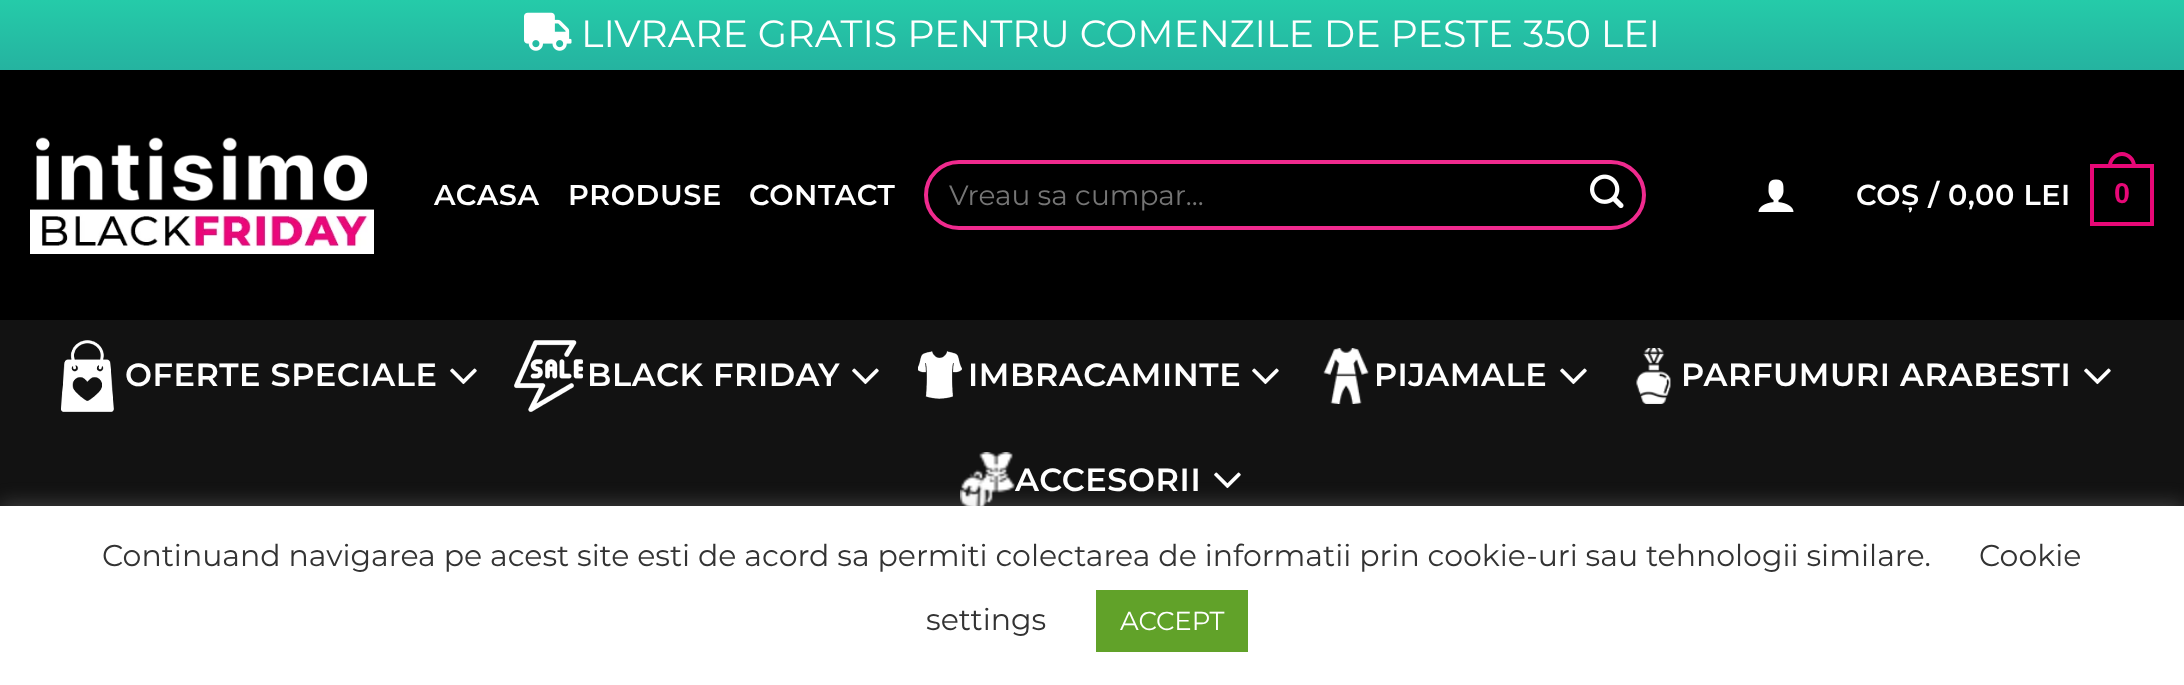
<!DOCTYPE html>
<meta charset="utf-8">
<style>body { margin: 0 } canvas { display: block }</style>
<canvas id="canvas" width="2184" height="685"></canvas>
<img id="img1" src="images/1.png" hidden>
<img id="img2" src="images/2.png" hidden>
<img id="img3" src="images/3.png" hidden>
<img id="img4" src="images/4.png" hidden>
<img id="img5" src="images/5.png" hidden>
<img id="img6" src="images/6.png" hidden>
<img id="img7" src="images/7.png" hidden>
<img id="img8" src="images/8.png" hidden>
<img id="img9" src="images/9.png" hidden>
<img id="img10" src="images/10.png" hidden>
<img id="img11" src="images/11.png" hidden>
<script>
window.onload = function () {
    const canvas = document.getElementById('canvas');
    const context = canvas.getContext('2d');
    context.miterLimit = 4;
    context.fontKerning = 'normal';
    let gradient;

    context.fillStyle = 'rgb(0, 0, 0)';
    context.fillRect(0, 0, 2184, 685);
    gradient = context.createLinearGradient(1092, 0, 1092, 70);
    gradient.addColorStop(0, 'rgb(37, 203, 169)');
    gradient.addColorStop(1, 'rgb(37, 179, 160)');
    context.fillStyle = gradient;
    context.fillRect(0, 0, 2184, 70);
    context.drawImage(document.getElementById('img1'), 524, 12, 48, 39);
    context.drawImage(document.getElementById('img2'), 30, 137, 344, 117);
    context.beginPath();
    context.roundRect(926, 162, 718, 66, 33);
    context.strokeStyle = 'rgb(239, 42, 142)';
    context.lineWidth = 4;
    context.stroke();
    context.drawImage(document.getElementById('img3'), 1590, 174, 34, 35);
    context.drawImage(document.getElementById('img4'), 1758, 179, 36, 33);
    context.strokeStyle = 'rgb(231, 8, 119)';
    context.strokeRect(2092, 166, 60, 58);
    context.fillStyle = 'rgb(231, 8, 119)';
    context.beginPath();
    context.moveTo(2122, 152);
    context.bezierCurveTo(2129.5, 152, 2136, 158.5, 2136, 166);
    context.lineTo(2136, 168);
    context.lineTo(2108, 168);
    context.lineTo(2108, 166);
    context.bezierCurveTo(2108, 158.5, 2114.5, 152, 2122, 152);
    context.closePath();
    context.moveTo(2122, 156);
    context.bezierCurveTo(2127.5, 156, 2132, 160.5, 2132, 166);
    context.lineTo(2132, 168);
    context.lineTo(2112, 168);
    context.lineTo(2112, 166);
    context.bezierCurveTo(2112, 160.5, 2116.5, 156, 2122, 156);
    context.closePath();
    context.fill('evenodd');
    context.fillStyle = 'rgb(18, 18, 18)';
    context.fillRect(0, 320, 2184, 186);
    context.drawImage(document.getElementById('img5'), 61, 340, 53, 72);
    context.drawImage(document.getElementById('img6'), 450, 368, 27, 17);
    context.drawImage(document.getElementById('img7'), 514, 340, 69, 72);
    context.drawImage(document.getElementById('img6'), 852, 368, 27, 17);
    context.drawImage(document.getElementById('img8'), 918, 351, 44, 48);
    context.drawImage(document.getElementById('img6'), 1252, 368, 27, 17);
    context.drawImage(document.getElementById('img9'), 1323, 348, 46, 56);
    context.drawImage(document.getElementById('img6'), 1560, 368, 27, 17);
    context.drawImage(document.getElementById('img10'), 1636, 348, 35, 56);
    context.drawImage(document.getElementById('img6'), 2084, 368, 27, 17);
    context.drawImage(document.getElementById('img11'), 960, 452, 55, 54);
    context.drawImage(document.getElementById('img6'), 1214, 472, 27, 17);
    context.fillStyle = 'rgba(172, 171, 171, 0.3)';
    context.filter = 'blur(10px)';
    context.beginPath();
    context.rect(0, 504, 2184, 180);
    context.fill();
    context.filter = 'none';
    context.fillStyle = 'rgb(255, 255, 255)';
    context.fillRect(0, 506, 2184, 179);
    context.fillStyle = 'rgb(97, 162, 41)';
    context.fillRect(1096, 590, 152, 62);
    context.font = '38px Montserrat';
    context.fillStyle = 'rgb(255, 255, 255)';
    context.fillText('LIVRARE GRATIS PENTRU COMENZILE DE PESTE 350 LEI', 581, 47);
    context.letterSpacing = '0.6px';
    context.font = '600 28.75px Montserrat';
    context.fillText('ACASA', 434, 205);
    context.fillText('PRODUSE', 568, 205);
    context.fillText('CONTACT', 749, 205);
    context.letterSpacing = '0px';
    context.font = '28px Montserrat';
    context.fillStyle = 'rgb(117, 117, 117)';
    context.fillText('Vreau sa cumpar...', 949, 205);
    context.letterSpacing = '0.6px';
    context.font = '600 28.75px Montserrat';
    context.fillStyle = 'rgb(255, 255, 255)';
    context.fillText('COȘ / 0,00 LEI', 1856, 205);
    context.font = 'bold 28.75px Liberation Sans';
    context.fillStyle = 'rgb(231, 8, 119)';
    context.fillText('0', 2114, 203);
    context.font = '600 32px Montserrat';
    context.fillStyle = 'rgb(255, 255, 255)';
    context.fillText('OFERTE SPECIALE', 125, 386);
    context.fillText('BLACK FRIDAY', 587, 386);
    context.fillText('IMBRACAMINTE', 968, 386);
    context.fillText('PIJAMALE', 1374, 386);
    context.fillText('PARFUMURI ARABESTI', 1681, 386);
    context.fillText('ACCESORII', 1015, 491);
    context.letterSpacing = '0px';
    context.font = '30px Montserrat';
    context.fillStyle = 'rgb(51, 51, 51)';
    context.fillText('Continuand navigarea pe acest site esti de acord sa permiti colectarea de informatii prin cookie-uri sau tehnologii similare.', 102, 566);
    context.fillText('Cookie', 1979, 566);
    context.fillText('settings', 926, 630);
    context.font = '26px Montserrat';
    context.fillStyle = 'rgb(255, 255, 255)';
    context.fillText('ACCEPT', 1120, 630);
};
</script>
